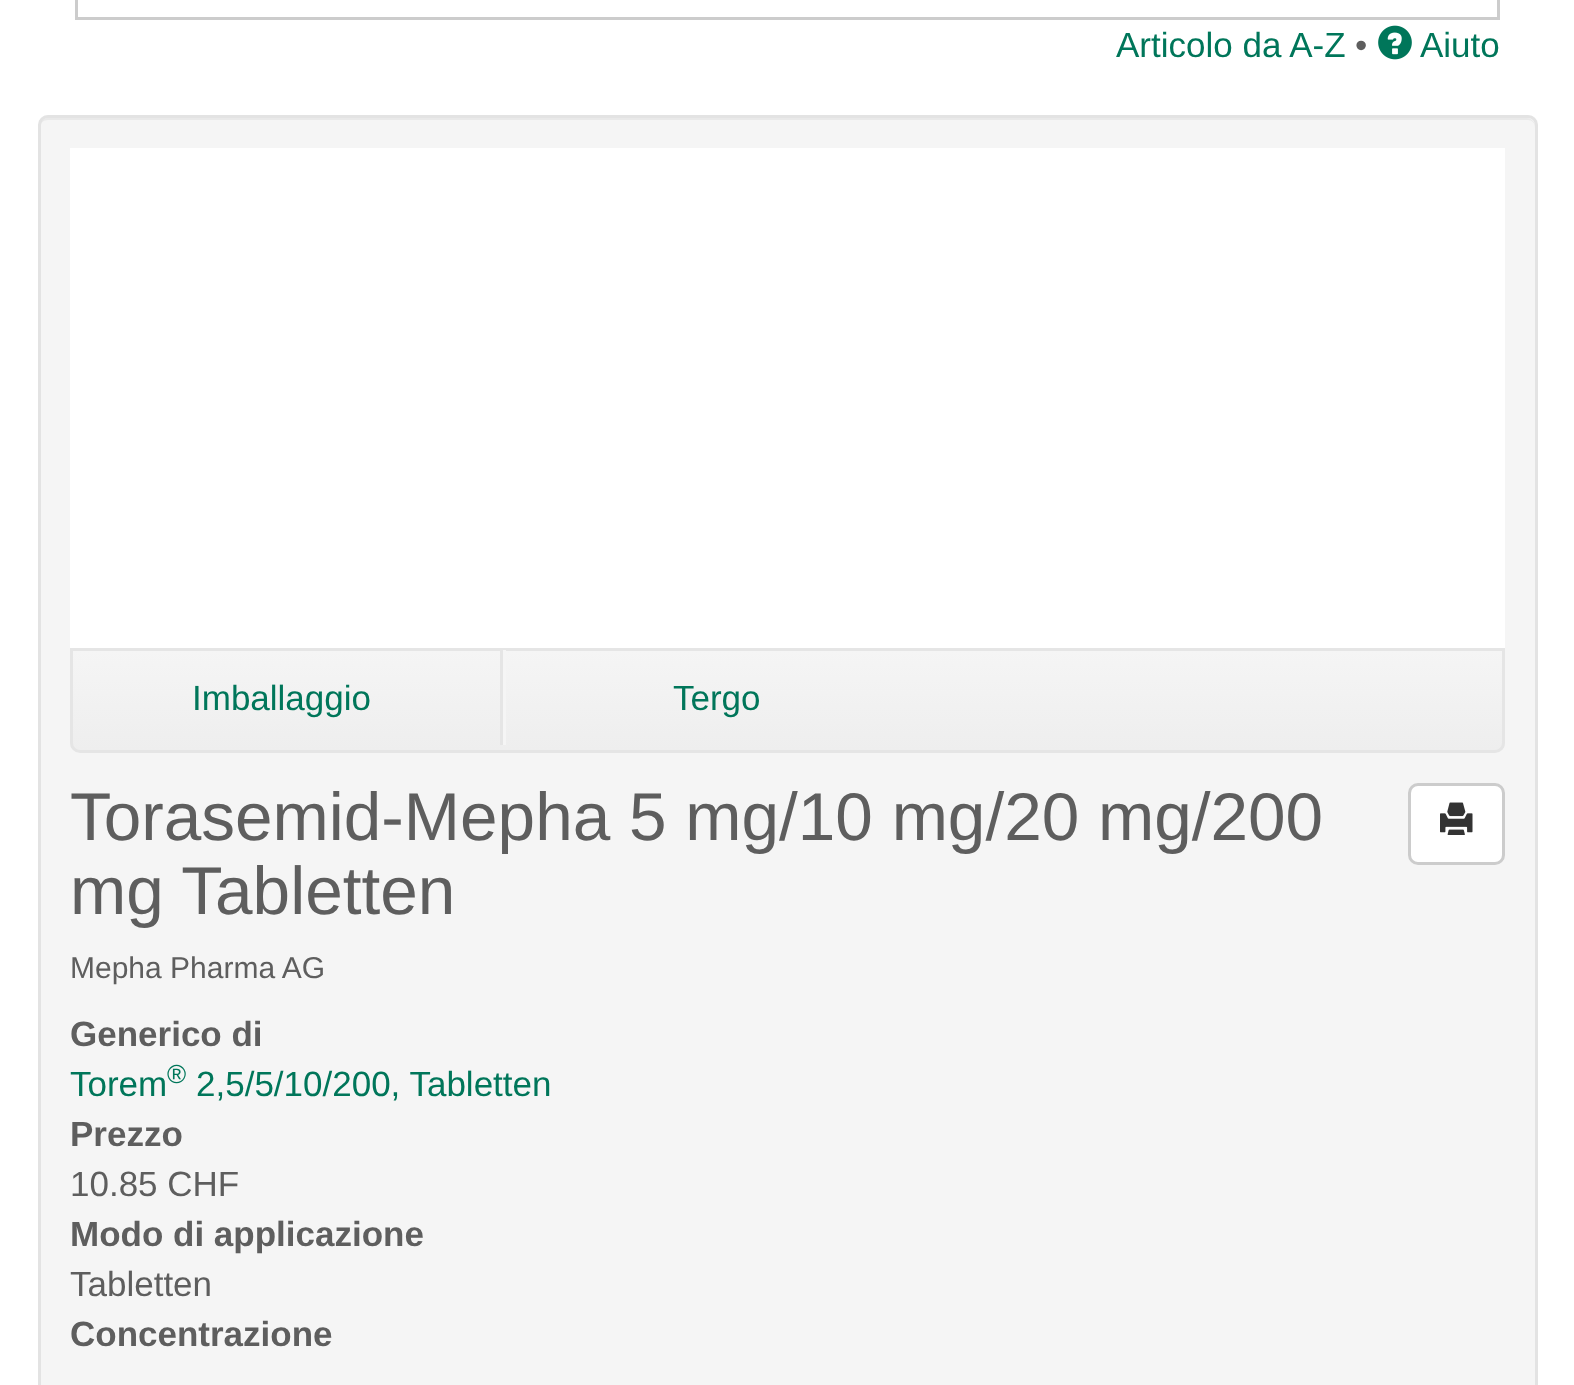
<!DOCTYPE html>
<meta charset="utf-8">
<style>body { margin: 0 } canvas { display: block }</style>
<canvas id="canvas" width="1574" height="1385"></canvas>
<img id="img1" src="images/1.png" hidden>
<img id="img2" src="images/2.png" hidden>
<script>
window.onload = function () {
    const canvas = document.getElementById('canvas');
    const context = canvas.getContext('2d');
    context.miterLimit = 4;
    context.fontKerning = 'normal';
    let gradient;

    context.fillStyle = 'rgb(255, 255, 255)';
    context.fillRect(0, 0, 1574, 1385);
    context.strokeStyle = 'rgb(204, 204, 204)';
    context.lineWidth = 3;
    context.strokeRect(76.5, -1.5, 1422, 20);
    context.drawImage(document.getElementById('img1'), 1378, 25, 34, 35);
    context.fillStyle = 'rgb(245, 245, 245)';
    context.beginPath();
    context.roundRect(38, 115, 1500, 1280, 10);
    context.fill();
    context.fillStyle = 'rgb(233, 233, 233)';
    context.beginPath();
    context.moveTo(48, 120);
    context.lineTo(1528, 120);
    context.bezierCurveTo(1532, 120, 1535, 123, 1535, 128);
    context.lineTo(1535, 126);
    context.bezierCurveTo(1535, 122, 1531, 118, 1527, 118);
    context.lineTo(48, 118);
    context.bezierCurveTo(44, 118, 40, 122, 40, 126);
    context.lineTo(40, 128);
    context.bezierCurveTo(40, 123, 43, 120, 48, 120);
    context.closePath();
    context.fill();
    context.beginPath();
    context.roundRect(39.5, 116.5, 1497, 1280, 8.5);
    context.strokeStyle = 'rgb(227, 227, 227)';
    context.stroke();
    context.fillStyle = 'rgb(255, 255, 255)';
    context.fillRect(70, 148, 1435, 500);
    context.save();
    context.beginPath();
    context.roundRect(70, 648, 1435, 105, [0, 0, 10, 10]);
    context.clip();
    gradient = context.createLinearGradient(788, 650, 788, 750);
    gradient.addColorStop(0, 'rgb(245, 245, 245)');
    gradient.addColorStop(1, 'rgb(238, 238, 238)');
    context.fillStyle = gradient;
    context.fillRect(70, 651, 1435, 99);
    context.restore();
    context.beginPath();
    context.roundRect(71.5, 649.5, 1432, 102, [0, 0, 8.5, 8.5]);
    context.strokeStyle = 'rgb(229, 229, 229)';
    context.stroke();
    context.fillStyle = 'rgb(229, 229, 229)';
    context.fillRect(500, 650, 3, 95);
    context.fillStyle = 'rgb(245, 245, 245)';
    context.fillRect(503, 650, 3, 95);
    context.fillStyle = 'rgb(255, 255, 255)';
    context.beginPath();
    context.roundRect(1409.5, 784.5, 94, 79, 8.5);
    context.fill();
    context.strokeStyle = 'rgb(204, 204, 204)';
    context.stroke();
    context.drawImage(document.getElementById('img2'), 1440, 802, 33, 33);
    context.font = '35px Liberation Sans';
    context.fillStyle = 'rgb(0, 118, 90)';
    context.fillText('Articolo da A-Z', 1116, 57);
    context.fillStyle = 'rgb(94, 94, 94)';
    context.fillText('•', 1355, 57);
    context.fillStyle = 'rgb(0, 118, 90)';
    context.fillText('Aiuto', 1420, 57);
    context.fillText('Imballaggio', 192, 710);
    context.fillText('Tergo', 673, 710);
    context.font = '67.5px Liberation Sans';
    context.fillStyle = 'rgb(94, 94, 94)';
    context.fillText('Torasemid-Mepha 5 mg/10 mg/20 mg/200', 70, 840);
    context.fillText('mg Tabletten', 70, 914);
    context.font = '30px Liberation Sans';
    context.fillText('Mepha Pharma AG', 70, 978);
    context.font = 'bold 35px Liberation Sans';
    context.fillText('Generico di', 70, 1046);
    context.font = '35px Liberation Sans';
    context.fillStyle = 'rgb(0, 118, 90)';
    context.fillText('Torem', 70, 1096);
    context.font = '26px Liberation Sans';
    context.fillText('®', 167, 1083);
    context.font = '35px Liberation Sans';
    context.fillText('2,5/5/10/200, Tabletten', 196, 1096);
    context.font = 'bold 35px Liberation Sans';
    context.fillStyle = 'rgb(94, 94, 94)';
    context.fillText('Prezzo', 70, 1146);
    context.font = '35px Liberation Sans';
    context.fillText('10.85 CHF', 70, 1196);
    context.font = 'bold 35px Liberation Sans';
    context.fillText('Modo di applicazione', 70, 1246);
    context.font = '35px Liberation Sans';
    context.fillText('Tabletten', 70, 1296);
    context.font = 'bold 35px Liberation Sans';
    context.fillText('Concentrazione', 70, 1346);
};
</script>
